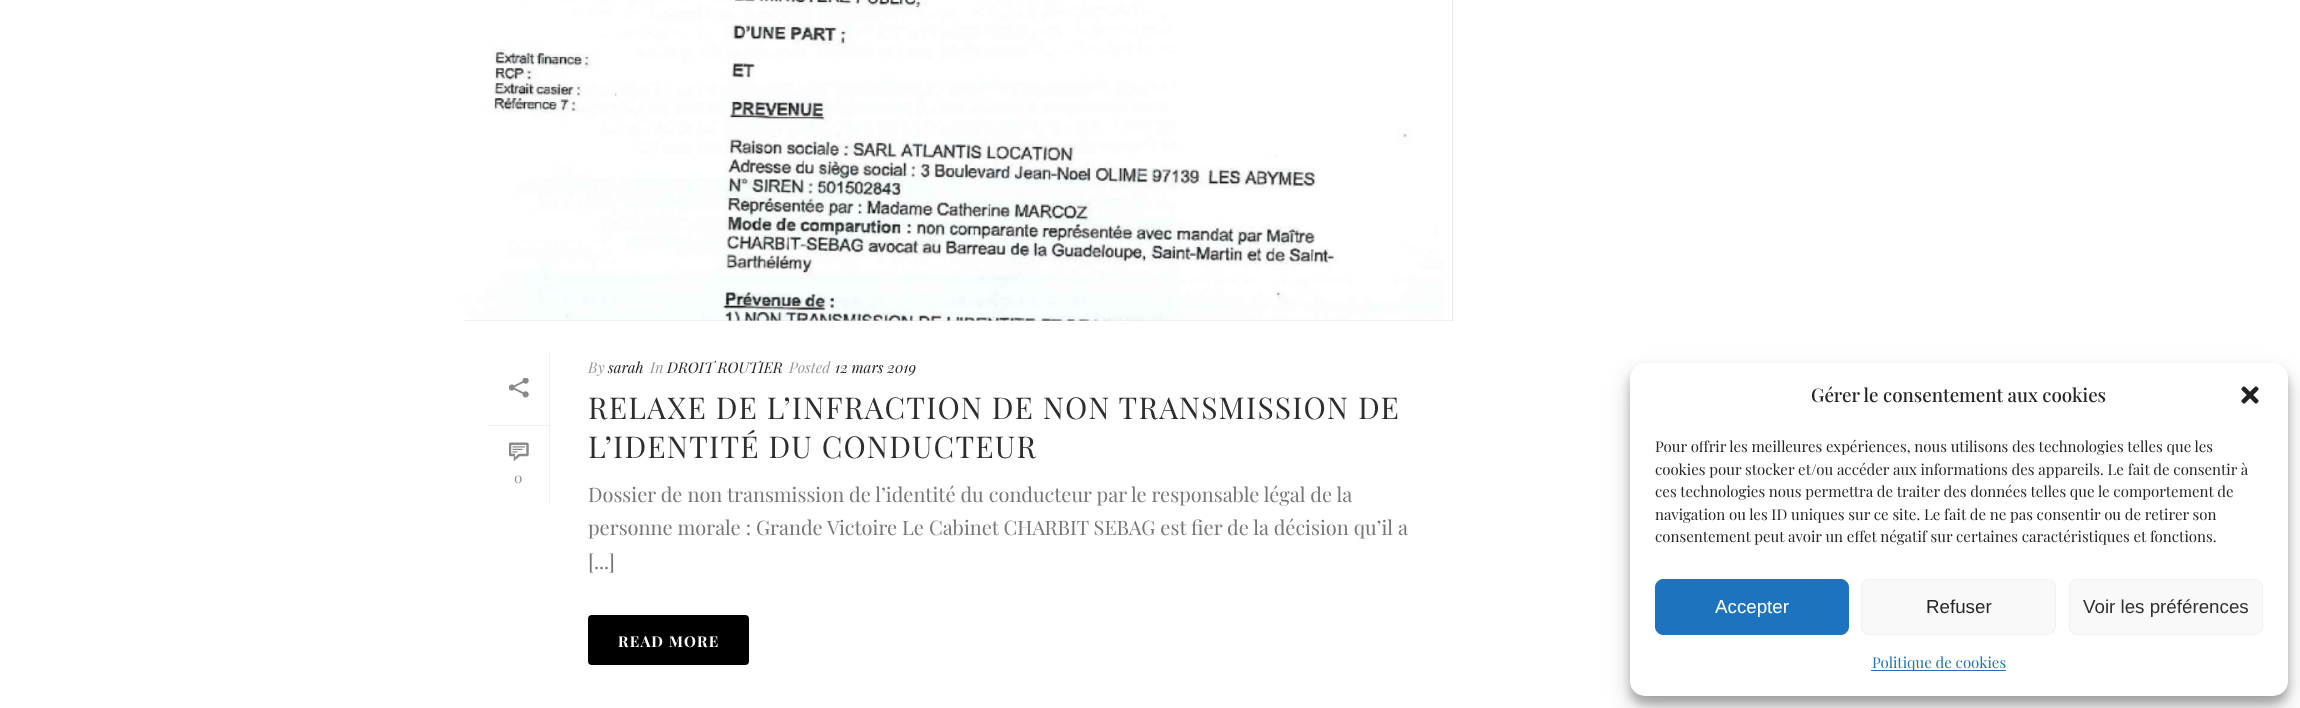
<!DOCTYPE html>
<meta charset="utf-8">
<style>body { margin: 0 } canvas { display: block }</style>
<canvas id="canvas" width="2300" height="708"></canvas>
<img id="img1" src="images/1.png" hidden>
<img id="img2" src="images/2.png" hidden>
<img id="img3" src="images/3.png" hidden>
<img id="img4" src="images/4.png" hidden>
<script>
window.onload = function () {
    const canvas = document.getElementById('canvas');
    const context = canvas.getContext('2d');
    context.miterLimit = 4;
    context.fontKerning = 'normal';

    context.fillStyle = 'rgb(255, 255, 255)';
    context.fillRect(0, 0, 2300, 708);
    context.fillStyle = 'rgb(224, 224, 224)';
    context.fillRect(463, 0, 990, 321);
    context.drawImage(document.getElementById('img1'), 463, 0, 990, 321);
    context.fillStyle = 'rgb(239, 239, 239)';
    context.fillRect(549, 353, 1, 150);
    context.fillRect(488, 425, 61, 1);
    context.drawImage(document.getElementById('img2'), 509, 378, 20, 20);
    context.drawImage(document.getElementById('img3'), 509, 442, 20, 19);
    context.fillStyle = 'rgb(0, 0, 0)';
    context.beginPath();
    context.roundRect(588, 615, 161, 50, 4);
    context.fill();
    context.fillStyle = 'rgba(0, 0, 0, 0.23)';
    context.filter = 'blur(4px)';
    context.beginPath();
    context.roundRect(1630, 370, 658, 334, 15);
    context.fill();
    context.filter = 'none';
    context.fillStyle = 'rgba(0, 0, 0, 0.19)';
    context.filter = 'blur(12.5px)';
    context.beginPath();
    context.roundRect(1630, 375, 658, 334, 15);
    context.fill();
    context.filter = 'none';
    context.fillStyle = 'rgb(255, 255, 255)';
    context.beginPath();
    context.roundRect(1630, 363, 658, 333, 15);
    context.fill();
    context.drawImage(document.getElementById('img4'), 2241, 386, 18, 18);
    context.fillStyle = 'rgb(30, 115, 190)';
    context.beginPath();
    context.roundRect(1655.5, 579.5, 193, 55, 7.5);
    context.fill();
    context.strokeStyle = 'rgb(30, 115, 190)';
    context.stroke();
    context.fillStyle = 'rgb(249, 249, 249)';
    context.beginPath();
    context.roundRect(1861.5, 579.5, 194, 55, 7.5);
    context.fill();
    context.strokeStyle = 'rgb(242, 242, 242)';
    context.stroke();
    context.beginPath();
    context.roundRect(2069.5, 579.5, 193, 55, 7.5);
    context.fill();
    context.stroke();
    context.fillStyle = 'rgb(30, 115, 190)';
    context.fillRect(1871, 670, 135, 1);
    context.font = '14px Playfair Display';
    context.fillStyle = 'rgb(137, 137, 137)';
    context.fillText('0', 514, 483);
    context.font = 'italic 15px Playfair Display';
    context.fillStyle = 'rgb(153, 153, 153)';
    context.fillText('By', 588, 373);
    context.fillStyle = 'rgb(37, 37, 37)';
    context.fillText('sarah', 608, 373);
    context.fillStyle = 'rgb(153, 153, 153)';
    context.fillText('In', 650, 373);
    context.fillStyle = 'rgb(37, 37, 37)';
    context.fillText('DROIT ROUTIER', 667, 373);
    context.fillStyle = 'rgb(153, 153, 153)';
    context.fillText('Posted', 789, 373);
    context.fillStyle = 'rgb(37, 37, 37)';
    context.fillText('12 mars 2019', 835, 373);
    context.letterSpacing = '1.25px';
    context.font = '30px Playfair Display';
    context.fillStyle = 'rgb(46, 46, 46)';
    context.fillText('RELAXE DE L’INFRACTION DE NON TRANSMISSION DE', 588, 419);
    context.fillText('L’IDENTITÉ DU CONDUCTEUR', 588, 458);
    context.letterSpacing = '0px';
    context.font = '20px Playfair Display';
    context.fillStyle = 'rgb(119, 119, 119)';
    context.fillText('Dossier de non transmission de l’identité du conducteur par le responsable légal de la', 588, 502);
    context.fillText('personne morale : Grande Victoire Le Cabinet CHARBIT SEBAG est fier de la décision qu’il a', 588, 535);
    context.fillText('[...]', 588, 569);
    context.letterSpacing = '1.25px';
    context.font = 'bold 15px Playfair Display';
    context.fillStyle = 'rgb(255, 255, 255)';
    context.fillText('READ MORE', 618, 647);
    context.letterSpacing = '0px';
    context.font = '500 18.75px Playfair Display';
    context.fillStyle = 'rgb(37, 37, 37)';
    context.fillText('Gérer le consentement aux cookies', 1811, 402);
    context.font = '15px Playfair Display';
    context.fillText('Pour offrir les meilleures expériences, nous utilisons des technologies telles que les', 1655, 452);
    context.fillText('cookies pour stocker et/ou accéder aux informations des appareils. Le fait de consentir à', 1655, 475);
    context.fillText('ces technologies nous permettra de traiter des données telles que le comportement de', 1655, 497);
    context.fillText('navigation ou les ID uniques sur ce site. Le fait de ne pas consentir ou de retirer son', 1655, 520);
    context.fillText('consentement peut avoir un effet négatif sur certaines caractéristiques et fonctions.', 1655, 542);
    context.font = '18.75px Liberation Sans';
    context.fillStyle = 'rgb(255, 255, 255)';
    context.fillText('Accepter', 1715, 613);
    context.fillStyle = 'rgb(37, 37, 37)';
    context.fillText('Refuser', 1926, 613);
    context.fillStyle = 'rgb(46, 46, 46)';
    context.fillText('Voir les préférences', 2083, 613);
    context.font = '15px Playfair Display';
    context.fillStyle = 'rgb(30, 115, 190)';
    context.fillText('Politique de cookies', 1872, 668);
};
</script>
